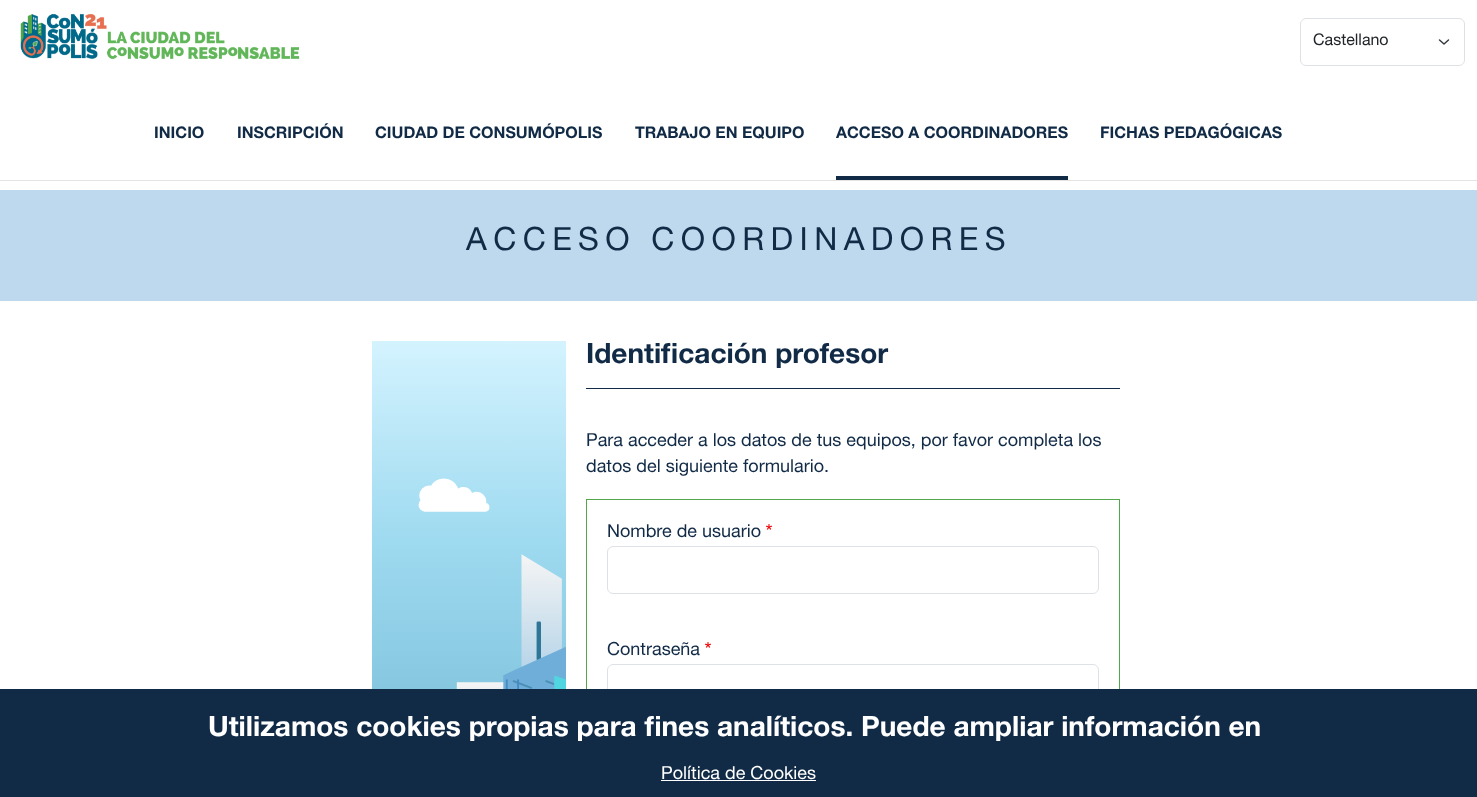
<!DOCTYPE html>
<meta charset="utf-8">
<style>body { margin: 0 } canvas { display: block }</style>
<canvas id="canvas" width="1477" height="797"></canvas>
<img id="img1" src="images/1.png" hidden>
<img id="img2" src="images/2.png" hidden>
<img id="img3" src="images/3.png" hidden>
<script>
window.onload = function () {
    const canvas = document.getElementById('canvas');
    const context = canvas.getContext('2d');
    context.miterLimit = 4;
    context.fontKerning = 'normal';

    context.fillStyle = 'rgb(255, 255, 255)';
    context.fillRect(0, 0, 1477, 797);
    context.drawImage(document.getElementById('img1'), 20, 13, 280, 47);
    context.beginPath();
    context.moveTo(1439.5, 40);
    context.lineTo(1444, 44);
    context.lineTo(1448.5, 40);
    context.strokeStyle = 'rgb(52, 58, 64)';
    context.lineWidth = 1.5;
    context.lineCap = 'round';
    context.lineJoin = 'round';
    context.stroke();
    context.beginPath();
    context.roundRect(1300.5, 18.5, 164, 47, 5.5);
    context.strokeStyle = 'rgb(222, 226, 230)';
    context.lineWidth = 1;
    context.lineJoin = 'miter';
    context.stroke();
    context.fillStyle = 'rgb(228, 228, 228)';
    context.fillRect(0, 180, 1477, 1);
    context.fillStyle = 'rgb(17, 42, 70)';
    context.fillRect(836, 176, 232, 4);
    context.fillStyle = 'rgb(190, 216, 237)';
    context.fillRect(0, 190, 1477, 111);
    context.drawImage(document.getElementById('img2'), 372, 341, 194, 348);
    context.fillStyle = 'rgb(17, 42, 70)';
    context.fillRect(586, 388, 534, 1);
    context.fillStyle = 'rgb(82, 167, 74)';
    context.fillRect(586, 499, 534, 1);
    context.fillRect(1119, 499, 1, 190);
    context.fillRect(586, 499, 1, 190);
    context.drawImage(document.getElementById('img3'), 766, 524, 6, 6);
    context.beginPath();
    context.roundRect(607.5, 546.5, 491, 47, 5.5);
    context.stroke();
    context.drawImage(document.getElementById('img3'), 705, 642, 6, 6);
    context.beginPath();
    context.roundRect(607.5, 664.5, 491, 47, 5.5);
    context.stroke();
    context.fillStyle = 'rgb(17, 42, 70)';
    context.fillRect(0, 689, 1477, 108);
    context.fillStyle = 'rgb(255, 255, 255)';
    context.fillRect(661, 780, 155, 1);
    context.font = '16px Helvetica Neue';
    context.fillStyle = 'rgb(33, 37, 41)';
    context.fillText('Castellano', 1313, 45);
    context.font = 'bold 16px Helvetica Neue';
    context.fillStyle = 'rgb(17, 42, 70)';
    context.fillText('INICIO', 154, 138);
    context.fillText('INSCRIPCIÓN', 237, 138);
    context.fillText('CIUDAD DE CONSUMÓPOLIS', 375, 138);
    context.fillText('TRABAJO EN EQUIPO', 635, 138);
    context.fillText('ACCESO A COORDINADORES', 836, 138);
    context.fillText('FICHAS PEDAGÓGICAS', 1100, 138);
    context.letterSpacing = '6.4px';
    context.font = '32px Helvetica Neue';
    context.fillText('ACCESO COORDINADORES', 466, 250);
    context.letterSpacing = '0px';
    context.font = 'bold 28px Helvetica Neue';
    context.fillText('Identificación profesor', 586, 363);
    context.font = '18px Helvetica Neue';
    context.fillText('Para acceder a los datos de tus equipos, por favor completa los', 586, 446);
    context.fillText('datos del siguiente formulario.', 586, 472);
    context.fillText('Nombre de usuario', 607, 537);
    context.fillText('Contraseña', 607, 655);
    context.font = 'bold 28px Helvetica Neue';
    context.fillStyle = 'rgb(255, 255, 255)';
    context.fillText('Utilizamos cookies propias para fines analíticos. Puede ampliar información en', 208, 736);
    context.font = '18px Helvetica Neue';
    context.fillText('Política de Cookies', 661, 779);
};
</script>
